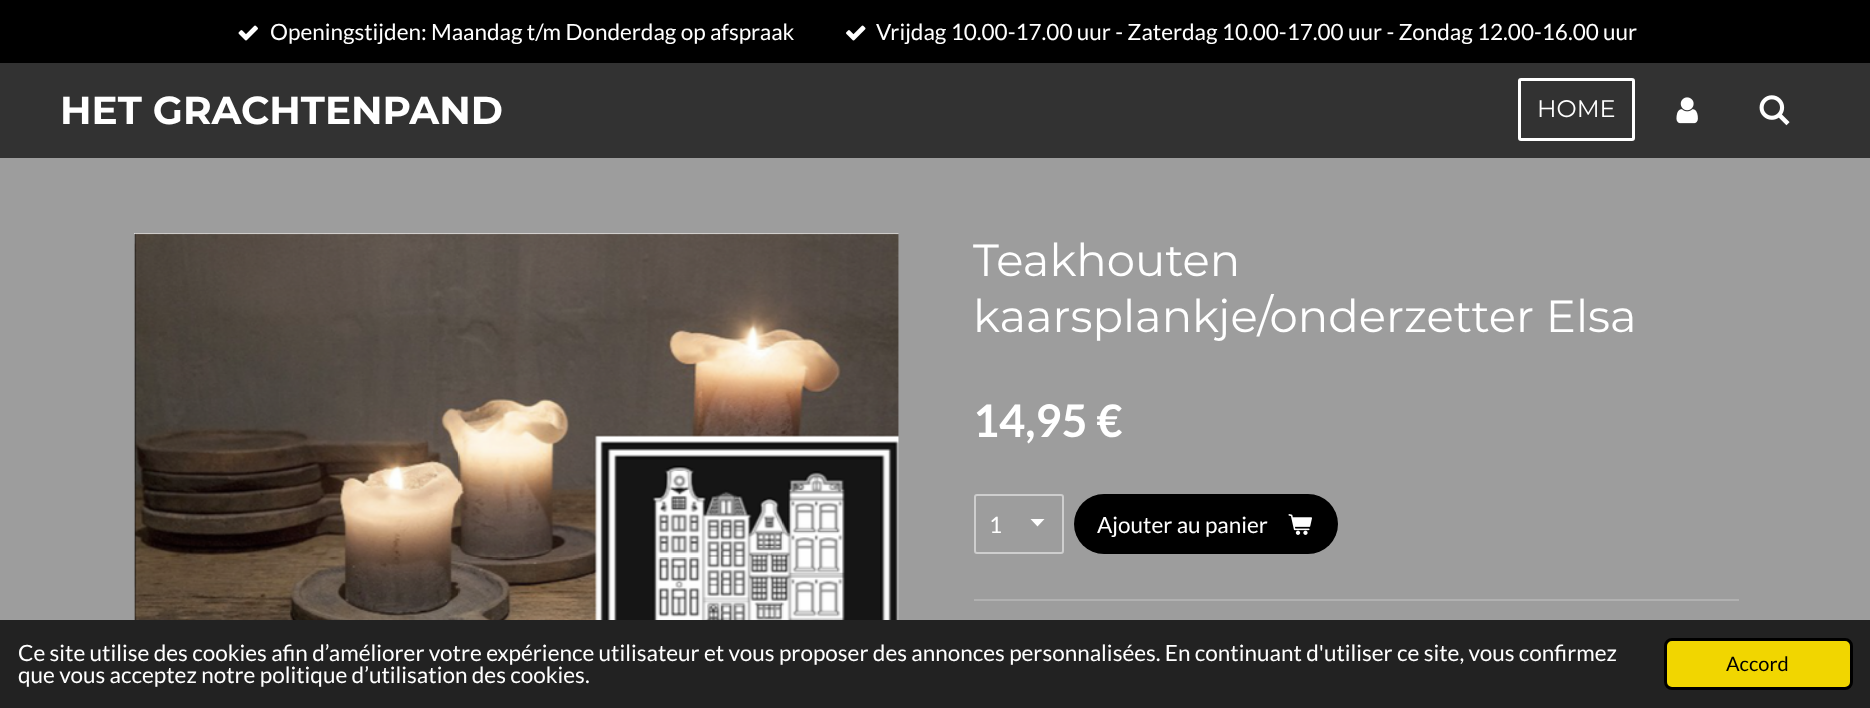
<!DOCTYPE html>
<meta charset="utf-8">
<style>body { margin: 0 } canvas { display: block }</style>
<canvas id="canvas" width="1870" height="708"></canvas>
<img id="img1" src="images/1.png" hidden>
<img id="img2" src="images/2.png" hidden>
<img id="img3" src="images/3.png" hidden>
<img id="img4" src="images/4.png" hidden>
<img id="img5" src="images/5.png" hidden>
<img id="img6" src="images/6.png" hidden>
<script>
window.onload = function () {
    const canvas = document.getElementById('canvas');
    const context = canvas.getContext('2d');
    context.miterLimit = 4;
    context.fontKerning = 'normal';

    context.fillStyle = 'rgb(157, 157, 157)';
    context.fillRect(0, 0, 1870, 708);
    context.fillStyle = 'rgb(50, 50, 50)';
    context.fillRect(0, 63, 1870, 95);
    context.fillStyle = 'rgb(0, 0, 0)';
    context.fillRect(0, 0, 1870, 63);
    context.drawImage(document.getElementById('img1'), 238, 25, 20, 16);
    context.drawImage(document.getElementById('img2'), 846, 25, 20, 16);
    context.beginPath();
    context.roundRect(1519.5, 79.5, 114, 60, 1.5);
    context.strokeStyle = 'rgb(255, 255, 255)';
    context.lineWidth = 3;
    context.stroke();
    context.drawImage(document.getElementById('img3'), 1676, 97, 22, 27);
    context.drawImage(document.getElementById('img4'), 1759, 95, 31, 31);
    context.drawImage(document.getElementById('img5'), 134, 233, 765, 387);
    context.fillStyle = 'rgb(255, 255, 255)';
    context.beginPath();
    context.moveTo(1037.5, 526.5);
    context.lineTo(1030.5, 519);
    context.lineTo(1044.5, 519);
    context.closePath();
    context.fill();
    context.beginPath();
    context.roundRect(975, 495, 88, 58, 2);
    context.strokeStyle = 'rgb(206, 206, 206)';
    context.lineWidth = 2;
    context.stroke();
    context.fillStyle = 'rgb(0, 0, 0)';
    context.beginPath();
    context.roundRect(1074, 494, 264, 60, 30);
    context.fill();
    context.drawImage(document.getElementById('img6'), 1288, 514, 24, 21);
    context.fillStyle = 'rgb(177, 177, 177)';
    context.fillRect(974, 599, 765, 2);
    context.fillStyle = 'rgb(34, 34, 34)';
    context.fillRect(0, 620, 1870, 88);
    context.fillStyle = 'rgb(241, 214, 0)';
    context.beginPath();
    context.roundRect(1665.5, 639.5, 186, 49, 6.5);
    context.fill();
    context.strokeStyle = 'rgb(0, 0, 0)';
    context.lineWidth = 3;
    context.stroke();
    context.font = '22.5px Lato';
    context.fillStyle = 'rgb(255, 255, 255)';
    context.fillText('Openingstijden: Maandag t/m Donderdag op afspraak', 270, 40);
    context.fillText('Vrijdag 10.00-17.00 uur - Zaterdag 10.00-17.00 uur - Zondag 12.00-16.00 uur', 876, 40);
    context.font = 'bold 39px Montserrat';
    context.fillText('HET GRACHTENPAND', 60, 124);
    context.font = '24px Montserrat';
    context.fillText('HOME', 1537, 117);
    context.font = '45px Montserrat';
    context.fillText('Teakhouten', 973, 276);
    context.fillText('kaarsplankje/onderzetter Elsa', 973, 332);
    context.font = 'bold 45px Lato';
    context.fillText('14,95 €', 973, 437);
    context.font = '22.5px Lato';
    context.fillText('1', 989, 533);
    context.fillText('Ajouter au panier', 1097, 533);
    context.fillText('Ce site utilise des cookies afin d’améliorer votre expérience utilisateur et vous proposer des annonces personnalisées. En continuant d\'utiliser ce site, vous confirmez', 18, 661);
    context.fillText('que vous acceptez notre politique d’utilisation des cookies.', 18, 683);
    context.font = '20px Lato';
    context.fillStyle = 'rgb(0, 0, 0)';
    context.fillText('Accord', 1726, 671);
};
</script>
